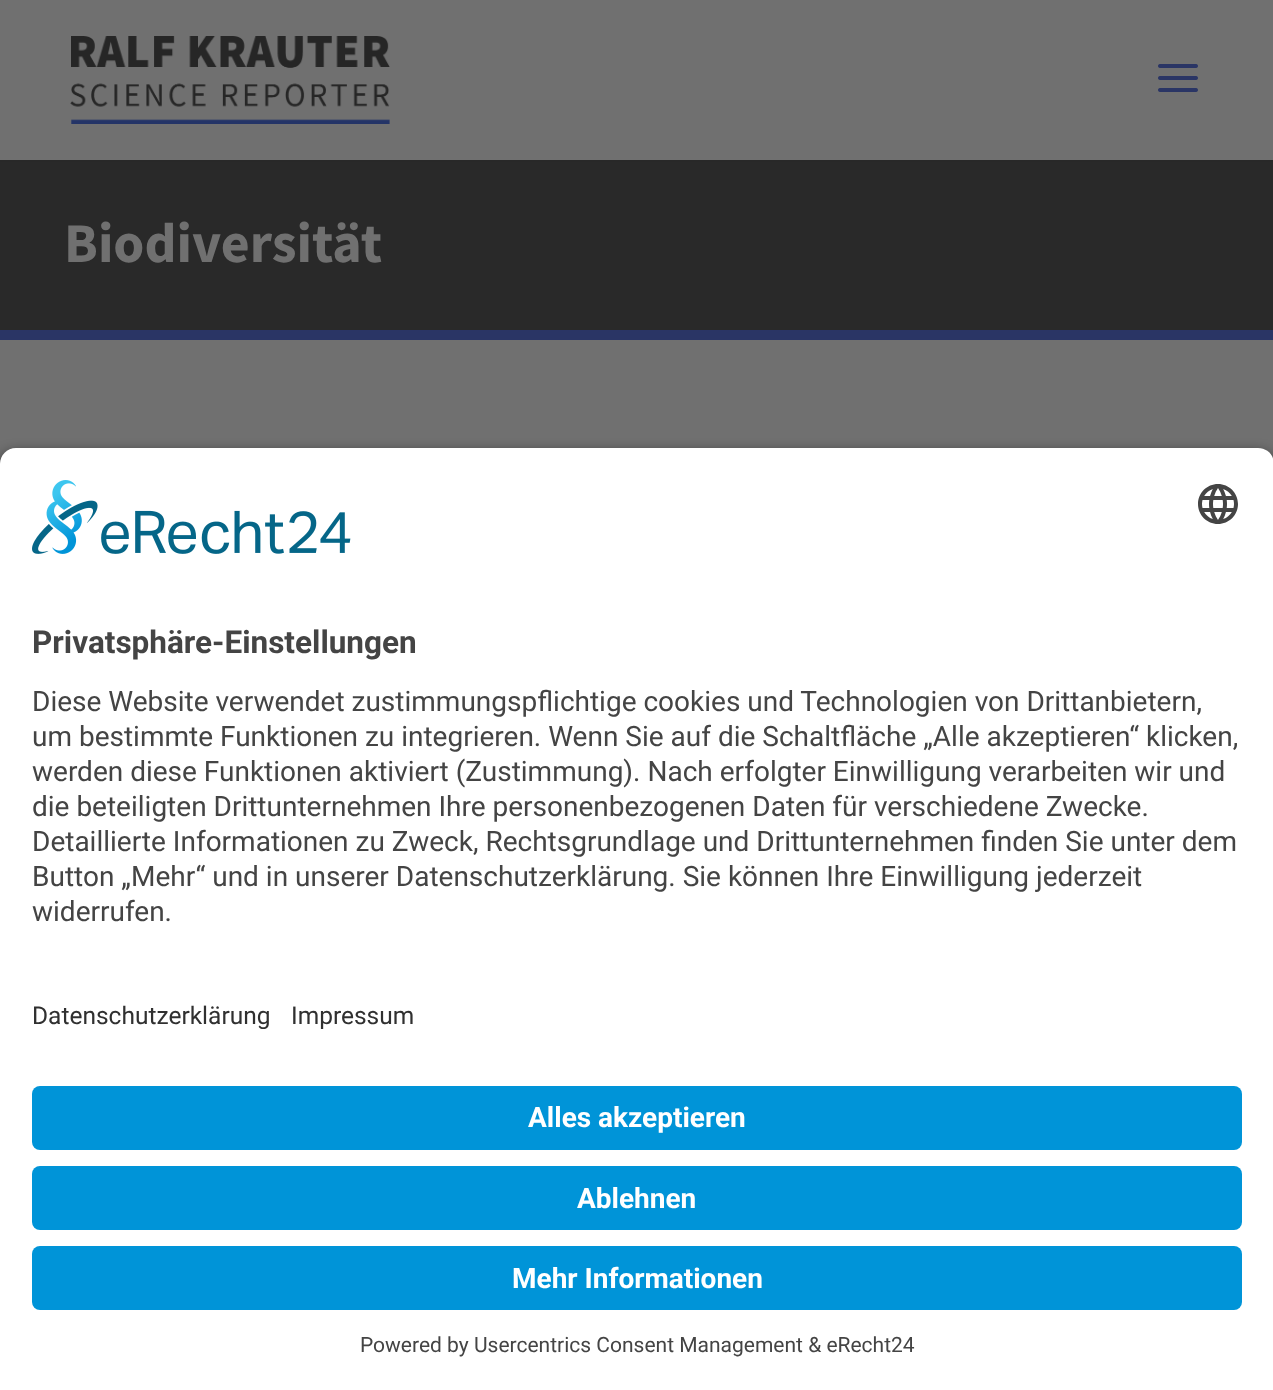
<!DOCTYPE html>
<meta charset="utf-8">
<style>body { margin: 0 } canvas { display: block }</style>
<canvas id="canvas" width="1273" height="1390"></canvas>
<img id="img1" src="images/1.png" hidden>
<img id="img2" src="images/2.png" hidden>
<img id="img3" src="images/3.png" hidden>
<img id="img4" src="images/4.png" hidden>
<script>
window.onload = function () {
    const canvas = document.getElementById('canvas');
    const context = canvas.getContext('2d');
    context.miterLimit = 4;
    context.fontKerning = 'normal';

    context.fillStyle = 'rgb(112, 112, 112)';
    context.fillRect(0, 0, 1273, 1390);
    context.fillStyle = 'rgb(40, 40, 40)';
    context.fillRect(0, 160, 1273, 2);
    context.drawImage(document.getElementById('img1'), 70, 36, 320, 88);
    context.drawImage(document.getElementById('img2'), 1158, 64, 40, 28);
    context.fillStyle = 'rgb(41, 41, 41)';
    context.fillRect(0, 162, 1273, 168);
    context.fillStyle = 'rgb(42, 53, 101)';
    context.fillRect(0, 330, 1273, 10);
    context.fillStyle = 'rgba(0, 0, 0, 0.8)';
    context.filter = 'blur(7px)';
    context.beginPath();
    context.roundRect(0, 454, 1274, 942, 16);
    context.fill();
    context.filter = 'none';
    context.fillStyle = 'rgb(255, 255, 255)';
    context.beginPath();
    context.moveTo(16, 448);
    context.lineTo(1258, 448);
    context.bezierCurveTo(1267, 448, 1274, 455, 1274, 464);
    context.lineTo(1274, 970);
    context.lineTo(0, 970);
    context.lineTo(0, 464);
    context.bezierCurveTo(0, 455, 7, 448, 16, 448);
    context.closePath();
    context.fill();
    context.drawImage(document.getElementById('img3'), 32, 480, 319, 74);
    context.drawImage(document.getElementById('img4'), 1198, 484, 40, 40);
    context.fillRect(0, 970, 1273, 420);
    context.fillStyle = 'rgb(0, 148, 216)';
    context.beginPath();
    context.roundRect(32, 1086, 1210, 64, 8);
    context.fill();
    context.beginPath();
    context.roundRect(32, 1166, 1210, 64, 8);
    context.fill();
    context.beginPath();
    context.roundRect(32, 1246, 1210, 64, 8);
    context.fill();
    context.font = 'bold 56px Source Sans Pro';
    context.fillStyle = 'rgb(112, 112, 112)';
    context.fillText('Biodiversität', 64, 262);
    context.font = 'bold 31.5px Roboto';
    context.fillStyle = 'rgb(68, 68, 68)';
    context.fillText('Privatsphäre-Einstellungen', 32, 653);
    context.font = '28px Roboto';
    context.fillText('Diese Website verwendet zustimmungspflichtige cookies und Technologien von Drittanbietern,', 32, 711);
    context.fillText('um bestimmte Funktionen zu integrieren. Wenn Sie auf die Schaltfläche „Alle akzeptieren“ klicken,', 32, 746);
    context.fillText('werden diese Funktionen aktiviert (Zustimmung). Nach erfolgter Einwilligung verarbeiten wir und', 32, 781);
    context.fillText('die beteiligten Drittunternehmen Ihre personenbezogenen Daten für verschiedene Zwecke.', 32, 816);
    context.fillText('Detaillierte Informationen zu Zweck, Rechtsgrundlage und Drittunternehmen finden Sie unter dem', 32, 851);
    context.fillText('Button „Mehr“ und in unserer Datenschutzerklärung. Sie können Ihre Einwilligung jederzeit', 32, 886);
    context.fillText('widerrufen.', 32, 921);
    context.font = '24.5px Roboto';
    context.fillStyle = 'rgb(48, 48, 48)';
    context.fillText('Datenschutzerklärung', 32, 1024);
    context.fillText('Impressum', 291, 1024);
    context.font = 'bold 28px Roboto';
    context.fillStyle = 'rgb(255, 255, 255)';
    context.fillText('Alles akzeptieren', 528, 1127);
    context.fillText('Ablehnen', 577, 1208);
    context.fillText('Mehr Informationen', 512, 1288);
    context.font = '21px Roboto';
    context.fillStyle = 'rgb(68, 68, 68)';
    context.fillText('Powered by Usercentrics Consent Management & eRecht24', 360, 1352);
};
</script>
